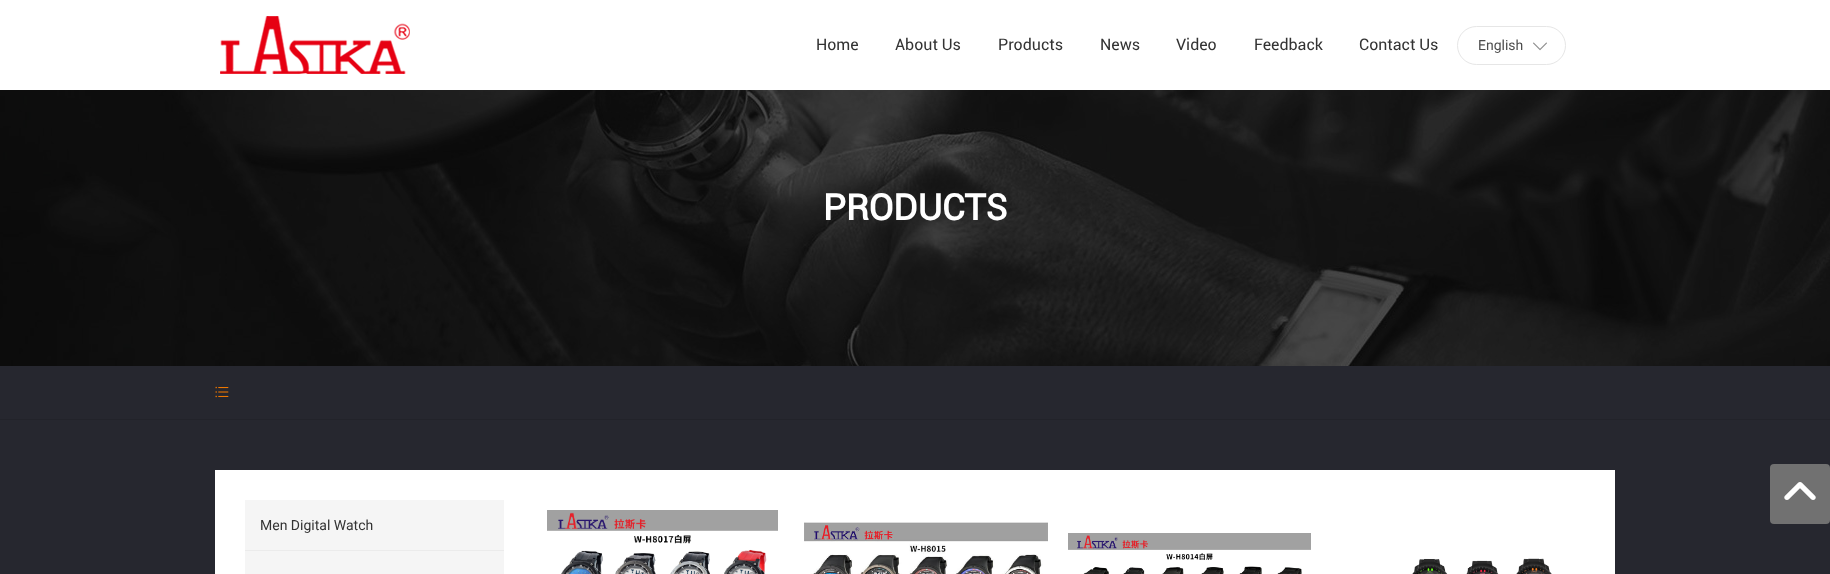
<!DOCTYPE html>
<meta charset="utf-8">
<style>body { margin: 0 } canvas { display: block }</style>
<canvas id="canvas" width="1830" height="574"></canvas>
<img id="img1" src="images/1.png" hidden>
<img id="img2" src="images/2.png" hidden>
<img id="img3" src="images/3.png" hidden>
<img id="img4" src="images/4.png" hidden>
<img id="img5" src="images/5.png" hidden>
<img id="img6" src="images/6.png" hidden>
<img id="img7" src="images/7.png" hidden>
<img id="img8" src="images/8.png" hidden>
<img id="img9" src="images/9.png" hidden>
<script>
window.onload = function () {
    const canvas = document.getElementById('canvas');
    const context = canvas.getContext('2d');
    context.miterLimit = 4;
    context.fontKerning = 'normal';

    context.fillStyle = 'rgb(0, 0, 0)';
    context.fillRect(0, 0, 1830, 574);
    context.fillStyle = 'rgb(255, 255, 255)';
    context.fillRect(0, 0, 1830, 90);
    context.drawImage(document.getElementById('img1'), 220, 16, 190, 58);
    context.beginPath();
    context.roundRect(1457.5, 26.5, 108, 38, 19);
    context.strokeStyle = 'rgb(230, 230, 230)';
    context.stroke();
    context.drawImage(document.getElementById('img2'), 1533, 42, 14, 9);
    context.drawImage(document.getElementById('img3'), 0, 90, 1830, 276);
    context.fillStyle = 'rgb(38, 39, 47)';
    context.fillRect(0, 366, 1830, 53);
    context.fillStyle = 'rgb(34, 35, 42)';
    context.fillRect(0, 419, 1830, 1);
    context.drawImage(document.getElementById('img4'), 215, 386, 14, 12);
    context.fillStyle = 'rgb(38, 39, 47)';
    context.fillRect(0, 420, 1830, 154);
    context.fillStyle = 'rgb(113, 113, 113)';
    context.beginPath();
    context.roundRect(1770, 464, 60, 60, 4);
    context.fill();
    context.drawImage(document.getElementById('img5'), 1784, 482, 32, 18);
    context.fillStyle = 'rgb(255, 255, 255)';
    context.fillRect(215, 470, 1400, 104);
    context.fillStyle = 'rgb(245, 245, 245)';
    context.fillRect(245, 500, 259, 50);
    context.fillStyle = 'rgb(235, 235, 235)';
    context.fillRect(245, 550, 259, 1);
    context.fillStyle = 'rgb(245, 245, 245)';
    context.fillRect(245, 551, 259, 23);
    context.drawImage(document.getElementById('img6'), 547, 510, 231, 64);
    context.drawImage(document.getElementById('img7'), 804, 522, 244, 52);
    context.drawImage(document.getElementById('img8'), 1068, 533, 243, 41);
    context.drawImage(document.getElementById('img9'), 1412, 558, 140, 16);
    context.font = '16px "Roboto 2"';
    context.fillStyle = 'rgb(51, 51, 51)';
    context.fillText('Home', 816, 50);
    context.fillText('About Us', 895, 50);
    context.fillText('Products', 998, 50);
    context.fillText('News', 1100, 50);
    context.fillText('Video', 1176, 50);
    context.fillText('Feedback', 1254, 50);
    context.fillText('Contact Us', 1359, 50);
    context.font = '14px Roboto';
    context.fillStyle = 'rgb(77, 77, 77)';
    context.fillText('English', 1478, 50);
    context.font = 'bold 36px Roboto';
    context.fillStyle = 'rgb(255, 255, 255)';
    context.fillText('PRODUCTS', 823, 220);
    context.font = '14px Roboto';
    context.fillStyle = 'rgb(51, 51, 51)';
    context.fillText('Men Digital Watch', 260, 530);
};
</script>
